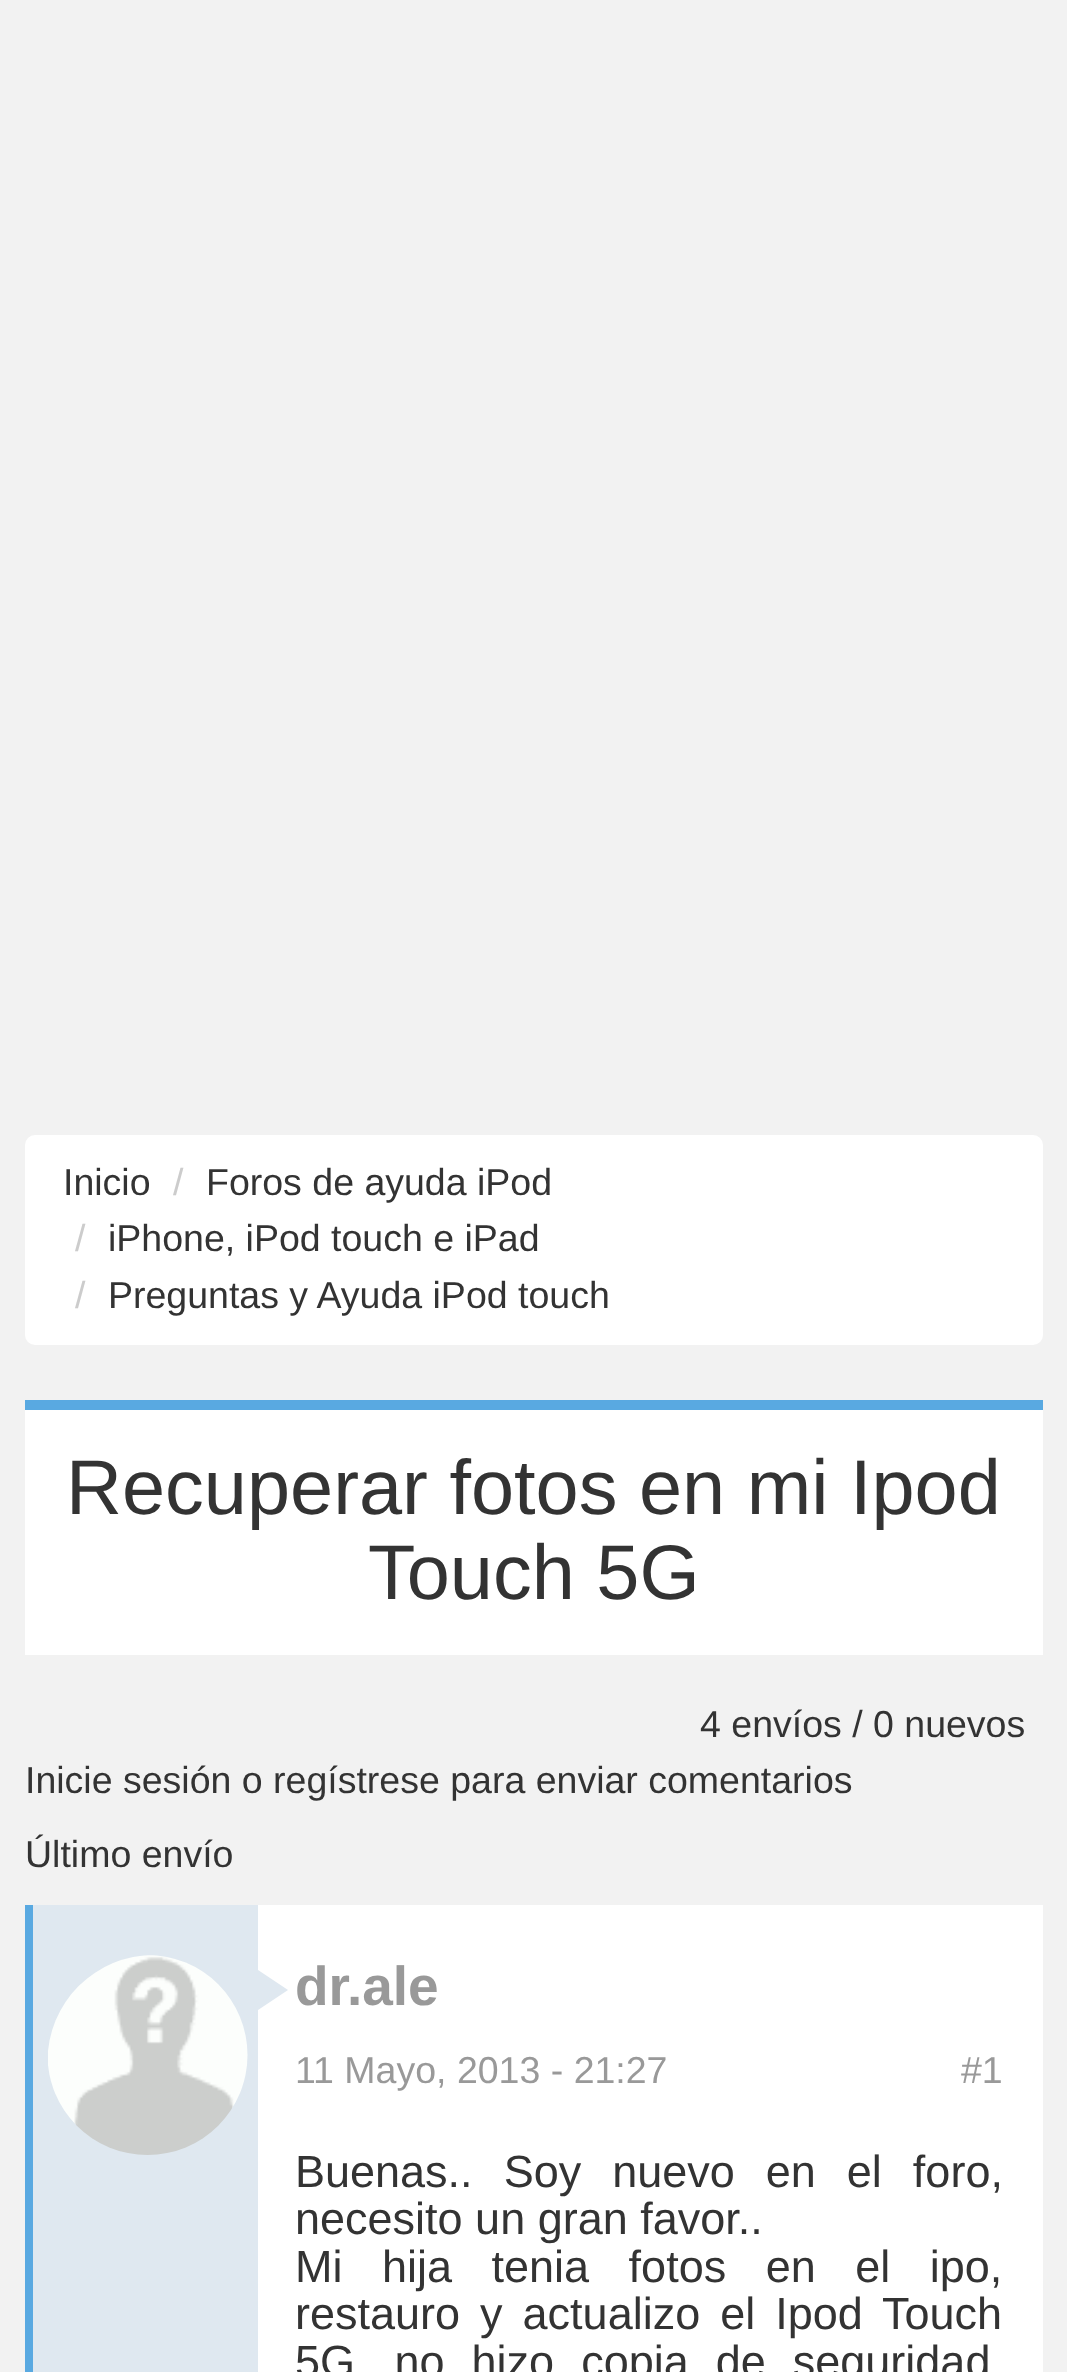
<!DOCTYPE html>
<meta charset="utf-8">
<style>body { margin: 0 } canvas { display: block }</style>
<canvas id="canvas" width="1067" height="2372"></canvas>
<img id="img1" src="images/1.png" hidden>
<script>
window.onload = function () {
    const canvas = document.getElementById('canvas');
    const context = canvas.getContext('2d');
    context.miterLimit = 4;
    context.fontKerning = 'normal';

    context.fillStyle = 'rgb(242, 242, 242)';
    context.fillRect(0, 0, 1067, 2372);
    context.fillStyle = 'rgb(255, 255, 255)';
    context.beginPath();
    context.roundRect(25, 1135, 1018, 210, 10);
    context.fill();
    context.fillRect(25, 1410, 1018, 245);
    context.fillStyle = 'rgb(89, 169, 225)';
    context.fillRect(25, 1400, 1018, 10);
    context.fillStyle = 'rgb(255, 255, 255)';
    context.fillRect(258, 1905, 785, 467);
    context.fillStyle = 'rgb(89, 169, 225)';
    context.fillRect(25, 1905, 8, 467);
    context.fillStyle = 'rgb(223, 232, 240)';
    context.fillRect(33, 1905, 225, 467);
    context.beginPath();
    context.moveTo(258, 2010);
    context.lineTo(258, 1970);
    context.lineTo(288, 1990);
    context.closePath();
    context.fill();
    context.drawImage(document.getElementById('img1'), 48, 1955, 200, 200);
    context.font = '37.5px Liberation Sans';
    context.fillStyle = 'rgb(51, 51, 51)';
    context.fillText('Inicio', 63, 1195);
    context.fillStyle = 'rgb(204, 204, 204)';
    context.fillText('/', 173, 1195);
    context.fillStyle = 'rgb(51, 51, 51)';
    context.fillText('Foros de ayuda iPod', 206, 1195);
    context.fillStyle = 'rgb(204, 204, 204)';
    context.fillText('/', 75, 1251);
    context.fillStyle = 'rgb(51, 51, 51)';
    context.fillText('iPhone, iPod touch e iPad', 108, 1251);
    context.fillStyle = 'rgb(204, 204, 204)';
    context.fillText('/', 75, 1308);
    context.fillStyle = 'rgb(51, 51, 51)';
    context.fillText('Preguntas y Ayuda iPod touch', 108, 1308);
    context.font = '77.5px Liberation Sans';
    context.fillText('Recuperar fotos en mi Ipod', 66, 1514);
    context.fillText('Touch 5G', 368, 1599);
    context.font = '37.5px Liberation Sans';
    context.fillText('4 envíos / 0 nuevos', 700, 1737);
    context.fillText('Inicie sesión o regístrese para enviar comentarios', 25, 1793);
    context.fillText('Último envío', 25, 1867);
    context.font = 'bold 55px Liberation Sans';
    context.fillStyle = 'rgb(153, 153, 153)';
    context.fillText('dr.ale', 295, 2005);
    context.font = '37.5px Liberation Sans';
    context.fillText('11 Mayo, 2013 - 21:27', 295, 2083);
    context.fillText('#1', 961, 2083);
    context.wordSpacing = '18.5px';
    context.font = '45px Liberation Sans';
    context.fillStyle = 'rgb(51, 51, 51)';
    context.fillText('Buenas.. Soy nuevo en el foro,', 295, 2187);
    context.wordSpacing = '0px';
    context.fillText('necesito un gran favor..', 295, 2234);
    context.wordSpacing = '27px';
    context.fillText('Mi hija tenia fotos en el ipo,', 295, 2282);
    context.wordSpacing = '7.5px';
    context.fillText('restauro y actualizo el Ipod Touch', 295, 2329);
    context.wordSpacing = '14.5px';
    context.fillText('5G, no hizo copia de seguridad', 295, 2377);
};
</script>
